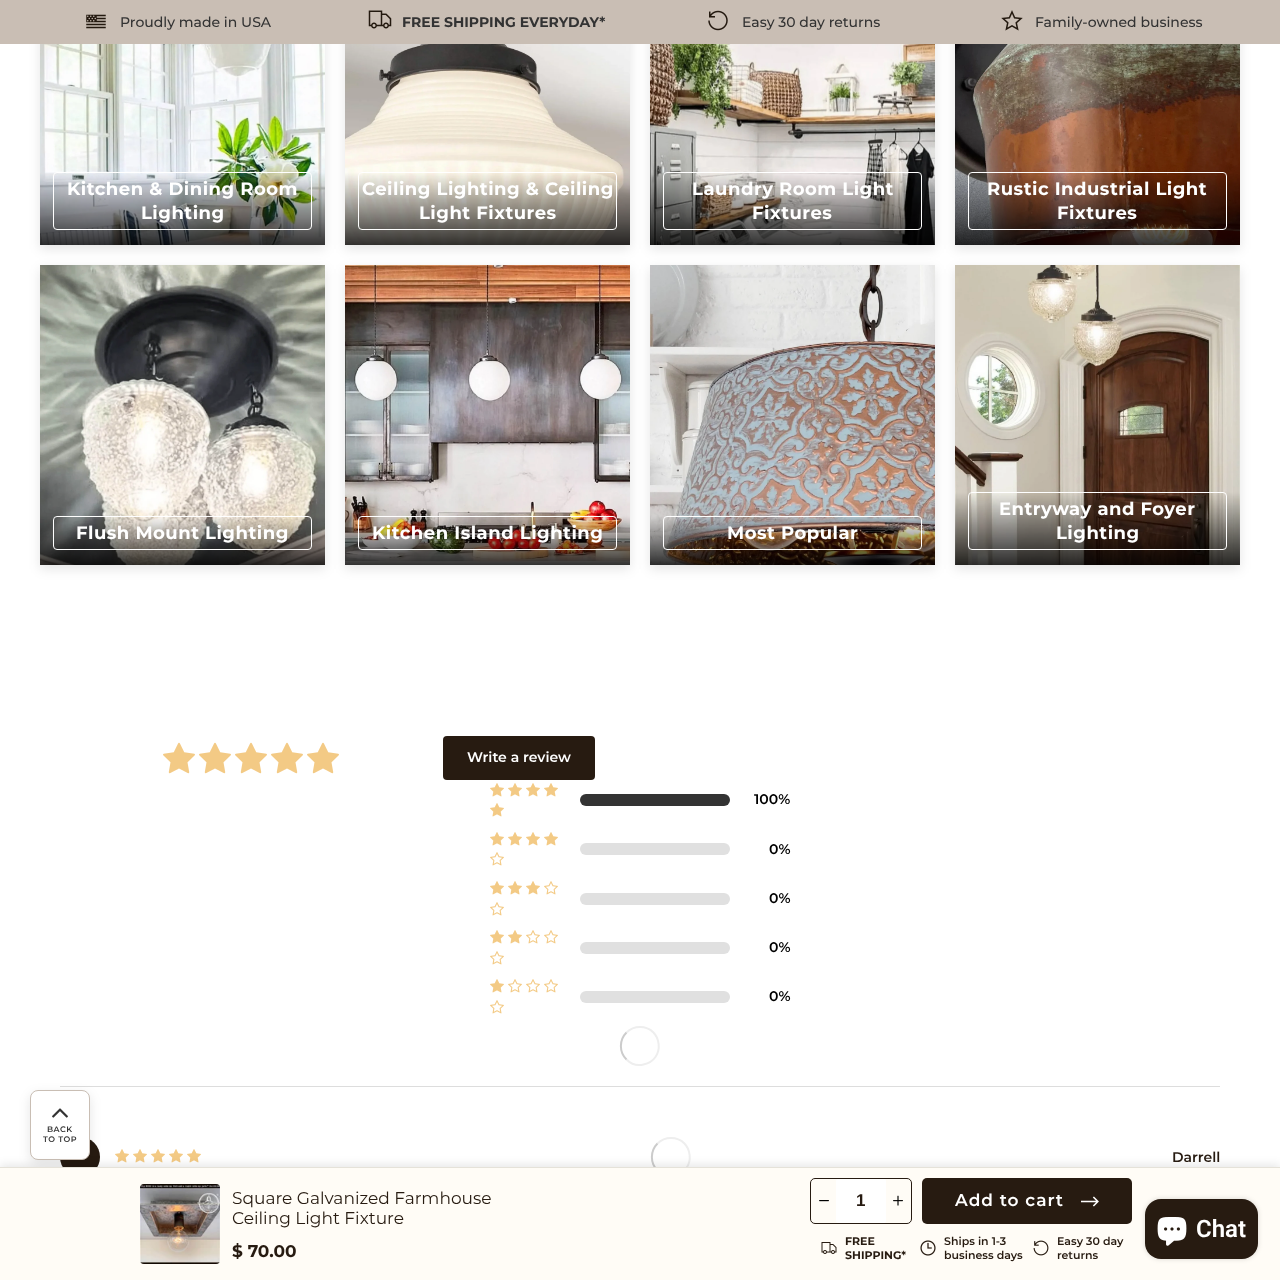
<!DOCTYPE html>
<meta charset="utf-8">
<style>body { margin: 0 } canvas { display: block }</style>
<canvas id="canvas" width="1280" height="1280"></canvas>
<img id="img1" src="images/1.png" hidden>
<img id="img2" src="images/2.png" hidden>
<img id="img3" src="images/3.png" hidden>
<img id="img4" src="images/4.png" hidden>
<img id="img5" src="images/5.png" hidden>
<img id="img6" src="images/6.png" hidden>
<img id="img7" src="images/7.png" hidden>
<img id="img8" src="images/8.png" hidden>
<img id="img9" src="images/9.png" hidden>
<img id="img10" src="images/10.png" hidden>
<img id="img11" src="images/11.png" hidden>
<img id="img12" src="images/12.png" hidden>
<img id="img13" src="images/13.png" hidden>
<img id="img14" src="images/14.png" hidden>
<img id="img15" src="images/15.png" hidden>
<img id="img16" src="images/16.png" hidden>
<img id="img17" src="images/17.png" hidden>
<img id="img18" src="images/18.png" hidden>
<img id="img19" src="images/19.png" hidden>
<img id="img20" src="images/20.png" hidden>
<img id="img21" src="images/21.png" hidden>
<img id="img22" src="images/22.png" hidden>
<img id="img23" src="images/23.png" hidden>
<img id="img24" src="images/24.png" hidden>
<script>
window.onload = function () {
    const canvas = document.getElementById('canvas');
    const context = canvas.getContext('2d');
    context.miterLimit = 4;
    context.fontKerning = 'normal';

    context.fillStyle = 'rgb(255, 255, 255)';
    context.fillRect(0, 0, 1280, 1280);
    context.fillStyle = 'rgba(0, 0, 0, 0.1)';
    context.filter = 'blur(6px)';
    context.beginPath();
    context.rect(40, -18, 285, 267);
    context.fill();
    context.filter = 'none';
    context.filter = 'blur(6px)';
    context.beginPath();
    context.rect(345, -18, 285, 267);
    context.fill();
    context.filter = 'none';
    context.filter = 'blur(6px)';
    context.beginPath();
    context.rect(650, -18, 285, 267);
    context.fill();
    context.filter = 'none';
    context.filter = 'blur(6px)';
    context.beginPath();
    context.rect(955, -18, 285, 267);
    context.fill();
    context.filter = 'none';
    context.fillStyle = 'rgb(201, 190, 180)';
    context.fillRect(0, 0, 1280, 44);
    context.drawImage(document.getElementById('img1'), 86, 14, 20, 15);
    context.drawImage(document.getElementById('img2'), 368, 10, 24, 19);
    context.drawImage(document.getElementById('img3'), 708, 10, 20, 21);
    context.drawImage(document.getElementById('img4'), 1001, 10, 22, 21);
    context.fillStyle = 'rgb(221, 221, 221)';
    context.fillRect(60, 1086, 1160, 1);
    context.fillStyle = 'rgb(39, 27, 17)';
    context.beginPath();
    context.arc(80, 1157, 20, 0, 2 * Math.PI);
    context.fill();
    context.fillStyle = 'rgba(0, 0, 0, 0.1)';
    context.filter = 'blur(6px)';
    context.beginPath();
    context.roundRect(30, 1094, 60, 70, 8);
    context.fill();
    context.filter = 'none';
    context.fillStyle = 'rgb(255, 255, 255)';
    context.beginPath();
    context.roundRect(30.5, 1090.5, 59, 69, 7.5);
    context.fill();
    context.strokeStyle = 'rgb(201, 190, 180)';
    context.stroke();
    context.drawImage(document.getElementById('img5'), 52, 1108, 16, 10);
    context.drawImage(document.getElementById('img6'), 40, 44, 285, 201);
    context.beginPath();
    context.roundRect(53.5, 172.5, 258, 57, 3.5);
    context.strokeStyle = 'rgb(255, 255, 255)';
    context.stroke();
    context.drawImage(document.getElementById('img7'), 345, 44, 285, 201);
    context.beginPath();
    context.roundRect(358.5, 172.5, 258, 57, 3.5);
    context.stroke();
    context.drawImage(document.getElementById('img8'), 650, 44, 285, 201);
    context.beginPath();
    context.roundRect(663.5, 172.5, 258, 57, 3.5);
    context.stroke();
    context.drawImage(document.getElementById('img9'), 955, 44, 285, 201);
    context.beginPath();
    context.roundRect(968.5, 172.5, 258, 57, 3.5);
    context.stroke();
    context.fillStyle = 'rgba(0, 0, 0, 0.1)';
    context.filter = 'blur(6px)';
    context.beginPath();
    context.rect(40, 269, 285, 300);
    context.fill();
    context.filter = 'none';
    context.drawImage(document.getElementById('img10'), 40, 265, 285, 300);
    context.beginPath();
    context.roundRect(53.5, 516.5, 258, 33, 3.5);
    context.stroke();
    context.filter = 'blur(6px)';
    context.beginPath();
    context.rect(345, 269, 285, 300);
    context.fill();
    context.filter = 'none';
    context.drawImage(document.getElementById('img11'), 345, 265, 285, 300);
    context.beginPath();
    context.roundRect(358.5, 516.5, 258, 33, 3.5);
    context.stroke();
    context.filter = 'blur(6px)';
    context.beginPath();
    context.rect(650, 269, 285, 300);
    context.fill();
    context.filter = 'none';
    context.drawImage(document.getElementById('img12'), 650, 265, 285, 300);
    context.beginPath();
    context.roundRect(663.5, 516.5, 258, 33, 3.5);
    context.stroke();
    context.filter = 'blur(6px)';
    context.beginPath();
    context.rect(955, 269, 285, 300);
    context.fill();
    context.filter = 'none';
    context.drawImage(document.getElementById('img13'), 955, 265, 285, 300);
    context.beginPath();
    context.roundRect(968.5, 492.5, 258, 57, 3.5);
    context.stroke();
    context.drawImage(document.getElementById('img14'), 163, 742, 32, 32);
    context.drawImage(document.getElementById('img14'), 199, 742, 32, 32);
    context.drawImage(document.getElementById('img14'), 235, 742, 32, 32);
    context.drawImage(document.getElementById('img14'), 271, 742, 32, 32);
    context.drawImage(document.getElementById('img14'), 307, 742, 32, 32);
    context.fillStyle = 'rgb(39, 27, 17)';
    context.beginPath();
    context.roundRect(443, 736, 152, 44, 4);
    context.fill();
    context.drawImage(document.getElementById('img15'), 490, 783, 14, 14);
    context.drawImage(document.getElementById('img15'), 508, 783, 14, 14);
    context.drawImage(document.getElementById('img15'), 526, 783, 14, 14);
    context.drawImage(document.getElementById('img15'), 544, 783, 14, 14);
    context.drawImage(document.getElementById('img15'), 490, 803, 14, 14);
    context.fillStyle = 'rgb(51, 51, 51)';
    context.beginPath();
    context.roundRect(580, 794, 150, 12, 6);
    context.fill();
    context.drawImage(document.getElementById('img15'), 490, 832, 14, 14);
    context.drawImage(document.getElementById('img15'), 508, 832, 14, 14);
    context.drawImage(document.getElementById('img15'), 526, 832, 14, 14);
    context.drawImage(document.getElementById('img15'), 544, 832, 14, 14);
    context.drawImage(document.getElementById('img16'), 490, 852, 14, 14);
    context.fillStyle = 'rgb(224, 224, 224)';
    context.beginPath();
    context.roundRect(580, 843, 150, 12, 6);
    context.fill();
    context.drawImage(document.getElementById('img15'), 490, 881, 14, 14);
    context.drawImage(document.getElementById('img15'), 508, 881, 14, 14);
    context.drawImage(document.getElementById('img15'), 526, 881, 14, 14);
    context.drawImage(document.getElementById('img16'), 544, 881, 14, 14);
    context.drawImage(document.getElementById('img16'), 490, 902, 14, 14);
    context.beginPath();
    context.roundRect(580, 893, 150, 12, 6);
    context.fill();
    context.drawImage(document.getElementById('img15'), 490, 930, 14, 14);
    context.drawImage(document.getElementById('img15'), 508, 930, 14, 14);
    context.drawImage(document.getElementById('img16'), 526, 930, 14, 14);
    context.drawImage(document.getElementById('img16'), 544, 930, 14, 14);
    context.drawImage(document.getElementById('img16'), 490, 951, 14, 14);
    context.beginPath();
    context.roundRect(580, 942, 150, 12, 6);
    context.fill();
    context.drawImage(document.getElementById('img15'), 490, 979, 14, 14);
    context.drawImage(document.getElementById('img16'), 508, 979, 14, 14);
    context.drawImage(document.getElementById('img16'), 526, 979, 14, 14);
    context.drawImage(document.getElementById('img16'), 544, 979, 14, 14);
    context.drawImage(document.getElementById('img16'), 490, 1000, 14, 14);
    context.beginPath();
    context.roundRect(580, 991, 150, 12, 6);
    context.fill();
    context.beginPath();
    context.moveTo(626.5, 1032.5);
    context.bezierCurveTo(630, 1029, 635, 1027, 640, 1027);
    context.bezierCurveTo(662.5, 1027, 666, 1060, 643.5, 1064.5);
    context.bezierCurveTo(637.5, 1066, 631, 1064, 626.5, 1059.5);
    context.strokeStyle = 'rgb(238, 238, 238)';
    context.lineWidth = 2;
    context.stroke();
    context.beginPath();
    context.moveTo(626.5, 1059.5);
    context.bezierCurveTo(619, 1052, 619, 1040, 626.5, 1032.5);
    context.strokeStyle = 'rgb(204, 204, 204)';
    context.stroke();
    context.drawImage(document.getElementById('img15'), 115, 1149, 14, 14);
    context.drawImage(document.getElementById('img15'), 133, 1149, 14, 14);
    context.drawImage(document.getElementById('img15'), 151, 1149, 14, 14);
    context.drawImage(document.getElementById('img15'), 169, 1149, 14, 14);
    context.drawImage(document.getElementById('img15'), 187, 1149, 14, 14);
    context.beginPath();
    context.moveTo(657.5, 1143.5);
    context.bezierCurveTo(661, 1140, 666, 1138, 671, 1138);
    context.bezierCurveTo(693.5, 1138, 697, 1171, 674.5, 1175.5);
    context.bezierCurveTo(668.5, 1177, 662, 1175, 657.5, 1170.5);
    context.strokeStyle = 'rgb(238, 238, 238)';
    context.stroke();
    context.beginPath();
    context.moveTo(657.5, 1170.5);
    context.bezierCurveTo(650, 1163, 650, 1151, 657.5, 1143.5);
    context.strokeStyle = 'rgb(204, 204, 204)';
    context.stroke();
    context.fillStyle = 'rgba(0, 0, 0, 0.1)';
    context.filter = 'blur(5px)';
    context.beginPath();
    context.rect(0, 1165, 1280, 113);
    context.fill();
    context.filter = 'none';
    context.fillStyle = 'rgb(255, 252, 246)';
    context.fillRect(0, 1168, 1280, 112);
    context.fillStyle = 'rgb(229, 226, 217)';
    context.fillRect(0, 1167, 1280, 1);
    context.drawImage(document.getElementById('img17'), 140, 1184, 80, 80);
    context.beginPath();
    context.roundRect(810.5, 1178.5, 101, 45, 4.5);
    context.strokeStyle = 'rgb(39, 27, 17)';
    context.lineWidth = 1;
    context.stroke();
    context.drawImage(document.getElementById('img18'), 819, 1200, 10, 2);
    context.fillStyle = 'rgb(255, 255, 255)';
    context.beginPath();
    context.roundRect(836, 1179, 50, 44, 2);
    context.fill();
    context.drawImage(document.getElementById('img19'), 893, 1195, 10, 11);
    context.fillStyle = 'rgb(39, 27, 17)';
    context.beginPath();
    context.roundRect(922, 1178, 210, 46, 5);
    context.fill();
    context.drawImage(document.getElementById('img20'), 1081, 1196, 18, 11);
    context.drawImage(document.getElementById('img21'), 821, 1242, 16, 12);
    context.drawImage(document.getElementById('img22'), 920, 1240, 16, 16);
    context.drawImage(document.getElementById('img23'), 1033, 1240, 16, 16);
    context.fillStyle = 'rgba(0, 0, 0, 0.15)';
    context.filter = 'blur(2.5px)';
    context.beginPath();
    context.roundRect(1145, 1199, 113, 60, 16);
    context.fill();
    context.filter = 'none';
    context.fillStyle = 'rgb(39, 27, 17)';
    context.beginPath();
    context.roundRect(1145, 1199, 113, 60, 16);
    context.fill();
    context.drawImage(document.getElementById('img24'), 1157, 1217, 30, 29);
    context.font = '500 14px Montserrat';
    context.fillStyle = 'rgb(51, 51, 51)';
    context.fillText('Proudly made in USA', 120, 27);
    context.font = 'bold 14px Montserrat';
    context.fillText('FREE SHIPPING EVERYDAY*', 402, 27);
    context.font = '500 14px Montserrat';
    context.fillText('Easy 30 day returns', 742, 27);
    context.fillText('Family-owned business', 1035, 27);
    context.letterSpacing = '0.5px';
    context.font = '600 8px Montserrat';
    context.fillText('BACK', 47, 1132);
    context.fillText('TO TOP', 43, 1142);
    context.font = 'bold 18px Montserrat';
    context.fillStyle = 'rgb(255, 255, 255)';
    context.fillText('Kitchen & Dining Room', 67, 195);
    context.fillText('Lighting', 141, 219);
    context.fillText('Ceiling Lighting & Ceiling', 362, 195);
    context.fillText('Light Fixtures', 419, 219);
    context.fillText('Laundry Room Light', 692, 195);
    context.fillText('Fixtures', 752, 219);
    context.fillText('Rustic Industrial Light', 987, 195);
    context.fillText('Fixtures', 1057, 219);
    context.fillText('Flush Mount Lighting', 76, 539);
    context.fillText('Kitchen Island Lighting', 372, 539);
    context.fillText('Most Popular', 727, 539);
    context.fillText('Entryway and Foyer', 999, 515);
    context.fillText('Lighting', 1056, 539);
    context.letterSpacing = '0px';
    context.font = '600 14px Montserrat';
    context.fillText('Write a review', 467, 762);
    context.fillStyle = 'rgb(0, 0, 0)';
    context.fillText('100%', 754, 804);
    context.fillText('0%', 769, 854);
    context.fillText('0%', 769, 903);
    context.fillText('0%', 769, 952);
    context.fillText('0%', 769, 1001);
    context.fillStyle = 'rgb(39, 27, 17)';
    context.fillText('Darrell', 1172, 1162);
    context.font = '17px Montserrat';
    context.fillText('Square Galvanized Farmhouse', 232, 1204);
    context.fillText('Ceiling Light Fixture', 232, 1224);
    context.font = 'bold 17px Montserrat';
    context.fillText('$ 70.00', 232, 1257);
    context.font = 'bold 17px Liberation Sans';
    context.fillText('1', 856, 1206);
    context.letterSpacing = '1px';
    context.font = '600 17px Montserrat';
    context.fillStyle = 'rgb(255, 255, 255)';
    context.fillText('Add to cart', 955, 1206);
    context.letterSpacing = '0px';
    context.font = 'bold 11px Montserrat';
    context.fillStyle = 'rgb(39, 27, 17)';
    context.fillText('FREE', 845, 1245);
    context.fillText('SHIPPING*', 845, 1259);
    context.font = '600 11px Montserrat';
    context.fillText('Ships in 1-3', 944, 1245);
    context.fillText('business days', 944, 1259);
    context.fillText('Easy 30 day', 1057, 1245);
    context.fillText('returns', 1057, 1259);
    context.font = '600 24px Roboto';
    context.fillStyle = 'rgb(255, 255, 255)';
    context.fillText('Chat', 1196, 1237);
};
</script>
